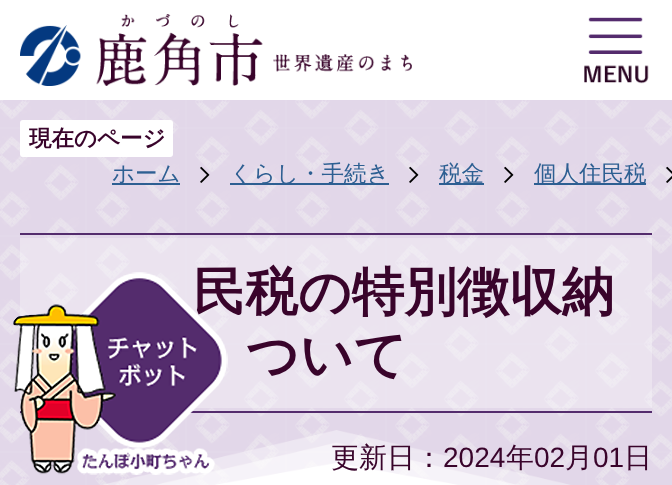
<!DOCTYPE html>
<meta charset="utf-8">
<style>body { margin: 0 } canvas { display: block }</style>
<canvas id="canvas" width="672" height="485"></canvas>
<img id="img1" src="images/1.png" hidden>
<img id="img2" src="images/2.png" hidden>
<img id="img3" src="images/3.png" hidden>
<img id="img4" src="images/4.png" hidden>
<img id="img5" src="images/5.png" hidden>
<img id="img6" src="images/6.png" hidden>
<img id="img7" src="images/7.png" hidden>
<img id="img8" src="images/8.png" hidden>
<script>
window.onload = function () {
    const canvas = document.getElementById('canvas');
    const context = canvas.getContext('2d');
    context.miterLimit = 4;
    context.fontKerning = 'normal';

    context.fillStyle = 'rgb(255, 255, 255)';
    context.fillRect(0, 0, 672, 485);
    context.drawImage(document.getElementById('img1'), 0, 100, 672, 385);
    context.drawImage(document.getElementById('img2'), 20, 14, 392, 72);
    context.drawImage(document.getElementById('img3'), 584, 17, 65, 67);
    context.beginPath();
    context.roundRect(20, 120, 153, 37, 3);
    context.fill();
    context.fillStyle = 'rgb(45, 95, 146)';
    context.fillRect(112, 183, 68, 2);
    context.drawImage(document.getElementById('img4'), 200, 166, 10, 17);
    context.fillRect(230, 183, 159, 2);
    context.drawImage(document.getElementById('img5'), 409, 166, 10, 17);
    context.fillRect(439, 183, 45, 2);
    context.drawImage(document.getElementById('img6'), 504, 166, 10, 17);
    context.fillRect(534, 183, 112, 2);
    context.drawImage(document.getElementById('img7'), 666, 166, 6, 17);
    context.fillStyle = 'rgb(84, 44, 109)';
    context.fillRect(20, 233, 632, 2);
    context.fillRect(20, 411, 632, 2);
    context.fillStyle = 'rgba(255, 255, 255, 0.3)';
    context.fillRect(20, 238, 632, 170);
    context.font = 'bold 22.5px WenQuanYi Zen Hei';
    context.fillStyle = 'rgb(57, 4, 43)';
    context.fillText('現在のページ', 29, 146);
    context.font = '500 22.5px WenQuanYi Zen Hei';
    context.fillStyle = 'rgb(45, 95, 146)';
    context.fillText('ホーム', 112, 181);
    context.fillText('くらし・手続き', 230, 181);
    context.fillText('税金', 439, 181);
    context.fillText('個人住民税', 534, 181);
    context.font = 'bold 52.5px WenQuanYi Zen Hei';
    context.fillStyle = 'rgb(57, 4, 43)';
    context.fillText('民税の特別徴収納', 193, 310);
    context.fillText('ついて', 246, 373);
    context.font = '500 28px WenQuanYi Zen Hei';
    context.fillText('更新日：', 331, 467);
    context.font = '28px Liberation Sans';
    context.fillText('2024', 443, 467);
    context.font = '500 28px WenQuanYi Zen Hei';
    context.fillText('年', 506, 467);
    context.font = '28px Liberation Sans';
    context.fillText('02', 534, 467);
    context.font = '500 28px WenQuanYi Zen Hei';
    context.fillText('月', 565, 467);
    context.font = '28px Liberation Sans';
    context.fillText('01', 593, 467);
    context.font = '500 28px WenQuanYi Zen Hei';
    context.fillText('日', 624, 467);
    context.drawImage(document.getElementById('img8'), 13, 272, 215, 203);
};
</script>
